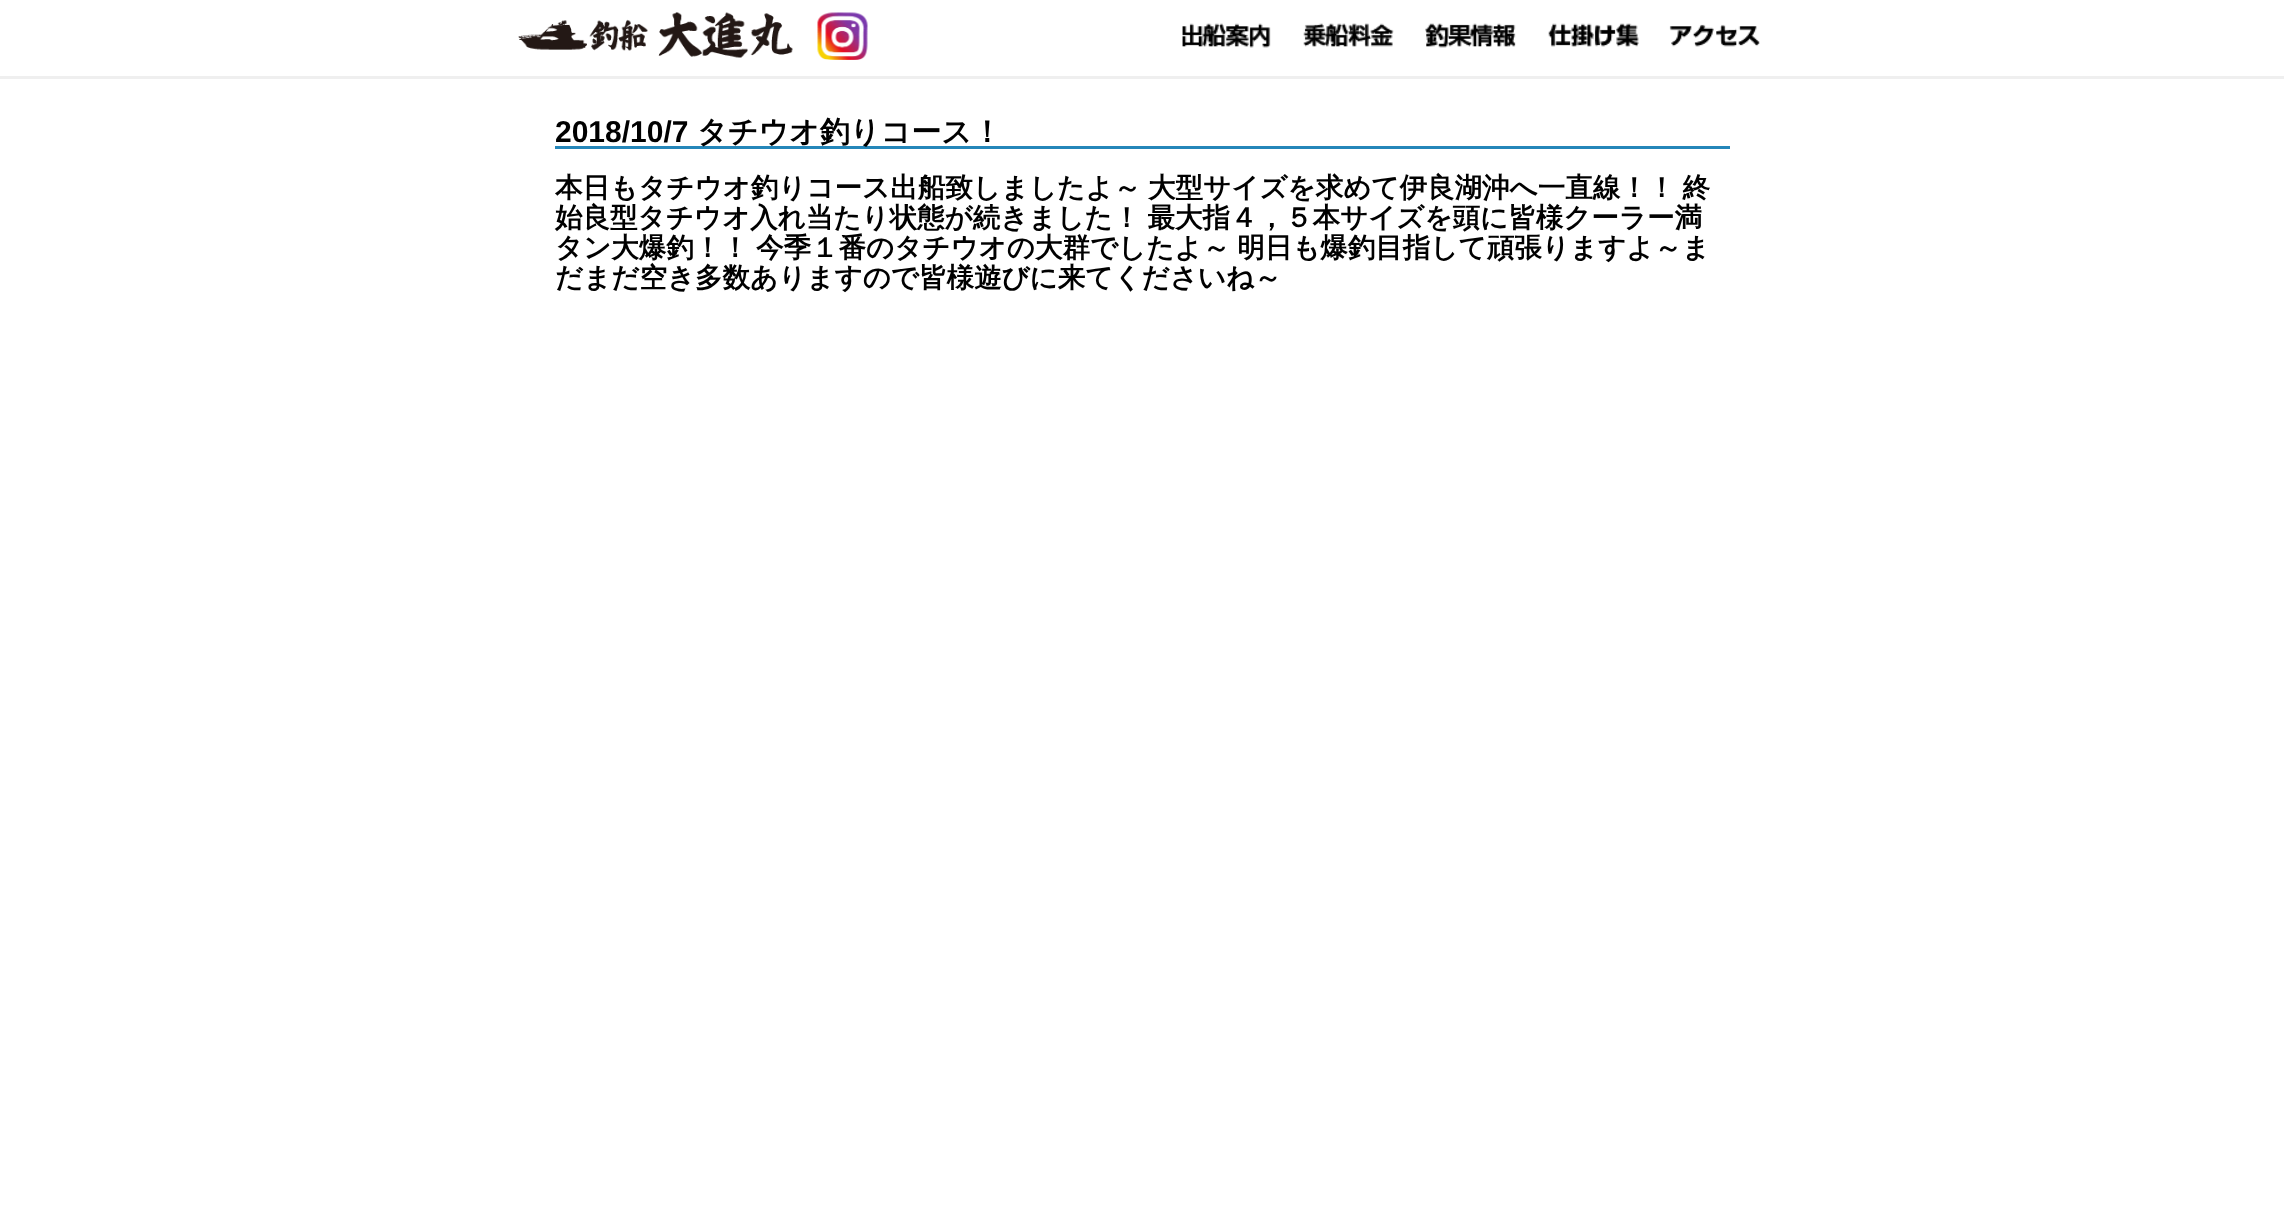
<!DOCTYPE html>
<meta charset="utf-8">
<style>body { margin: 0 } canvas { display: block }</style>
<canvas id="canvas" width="2284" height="1224"></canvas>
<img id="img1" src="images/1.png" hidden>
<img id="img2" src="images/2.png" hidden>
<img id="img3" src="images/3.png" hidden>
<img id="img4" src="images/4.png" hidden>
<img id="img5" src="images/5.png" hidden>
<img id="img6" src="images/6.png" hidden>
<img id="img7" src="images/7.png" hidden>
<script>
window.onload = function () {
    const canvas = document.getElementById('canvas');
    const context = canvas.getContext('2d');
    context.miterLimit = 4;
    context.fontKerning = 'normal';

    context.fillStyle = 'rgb(255, 255, 255)';
    context.fillRect(0, 0, 2284, 1224);
    context.fillStyle = 'rgb(239, 239, 239)';
    context.fillRect(0, 76, 2284, 3);
    context.drawImage(document.getElementById('img1'), 518, 12, 275, 46);
    context.drawImage(document.getElementById('img2'), 817, 12, 51, 48);
    context.drawImage(document.getElementById('img3'), 1182, 23, 89, 25);
    context.drawImage(document.getElementById('img4'), 1303, 23, 91, 24);
    context.drawImage(document.getElementById('img5'), 1425, 23, 91, 25);
    context.drawImage(document.getElementById('img6'), 1548, 23, 91, 24);
    context.drawImage(document.getElementById('img7'), 1669, 24, 91, 23);
    context.fillStyle = 'rgb(36, 134, 185)';
    context.fillRect(555, 146, 1175, 3);
    context.font = 'bold 30px Liberation Sans';
    context.fillStyle = 'rgb(0, 0, 0)';
    context.fillText('2018/10/7', 555, 142);
    context.font = 'bold 30px WenQuanYi Zen Hei';
    context.fillText('タチウオ釣りコース！', 697, 142);
    context.wordSpacing = '-1px';
    context.font = 'bold 27.5px WenQuanYi Zen Hei';
    context.fillText('本日もタチウオ釣りコース出船致しましたよ～ 大型サイズを求めて伊良湖沖へ一直線！！ 終', 555, 197);
    context.fillText('始良型タチウオ入れ当たり状態が続きました！ 最大指４，５本サイズを頭に皆様クーラー満', 555, 227);
    context.fillText('タン大爆釣！！ 今季１番のタチウオの大群でしたよ～ 明日も爆釣目指して頑張りますよ～ま', 555, 257);
    context.wordSpacing = '0px';
    context.fillText('だまだ空き多数ありますので皆様遊びに来てくださいね～', 555, 287);
};
</script>
